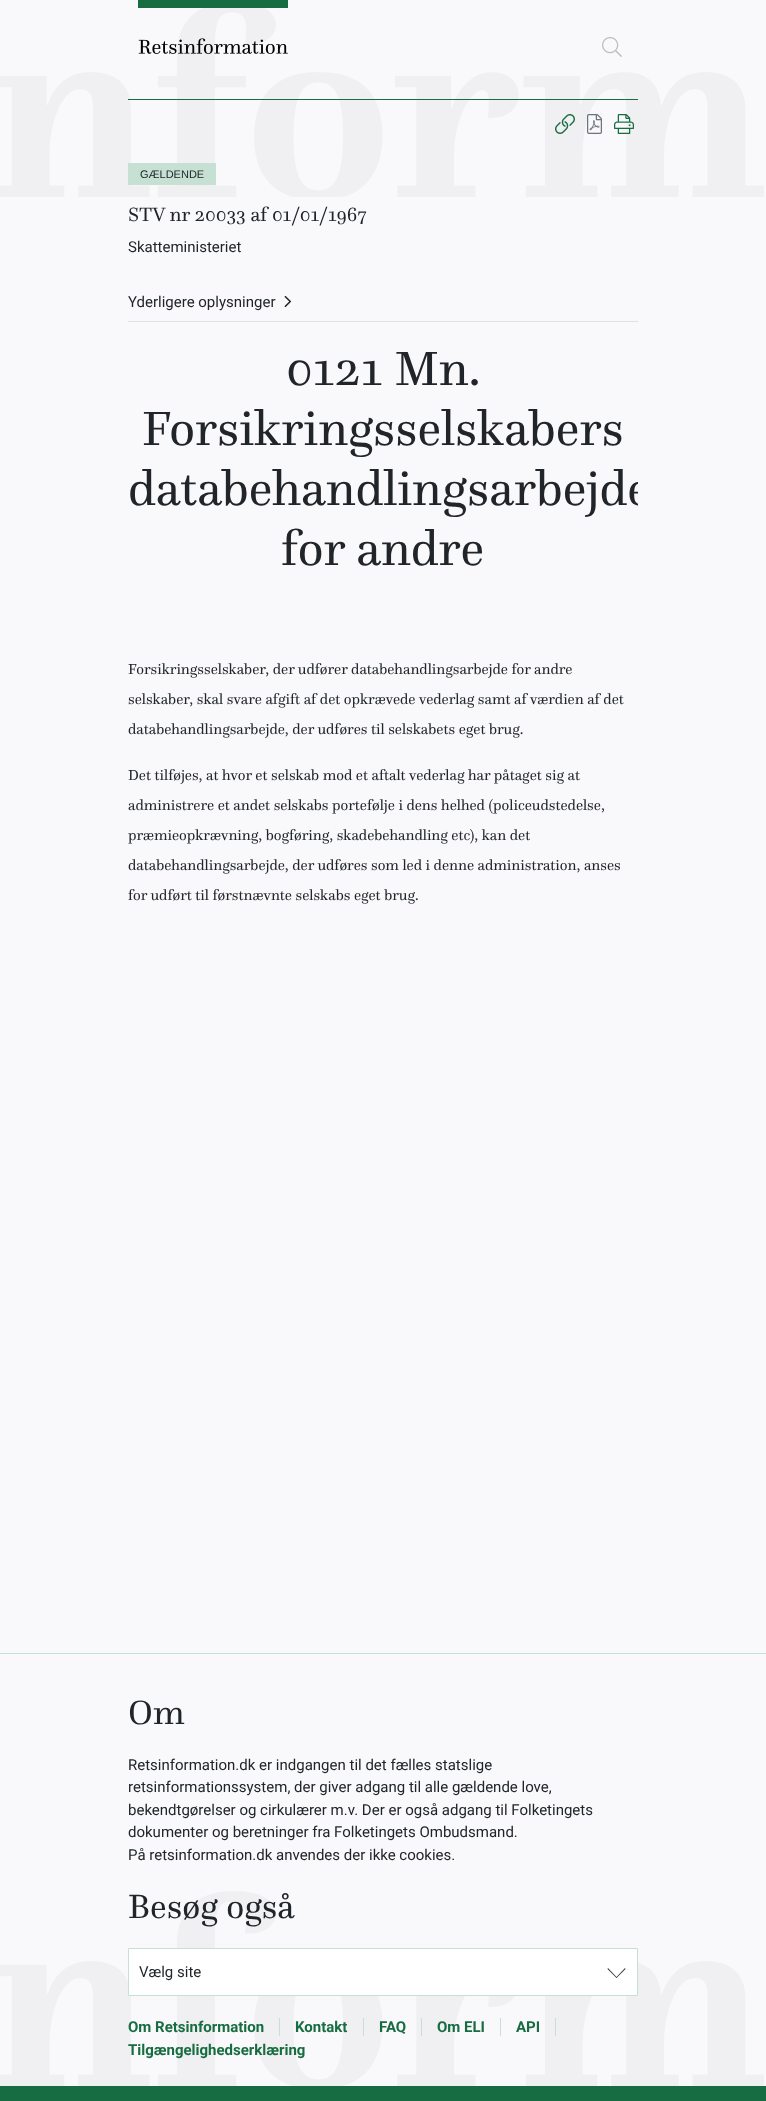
<!DOCTYPE html>
<meta charset="utf-8">
<style>body { margin: 0 } canvas { display: block }</style>
<canvas id="canvas" width="766" height="2101"></canvas>
<img id="img1" src="images/1.png" hidden>
<img id="img2" src="images/2.png" hidden>
<img id="img3" src="images/3.png" hidden>
<img id="img4" src="images/4.png" hidden>
<img id="img5" src="images/5.png" hidden>
<img id="img6" src="images/6.png" hidden>
<img id="img7" src="images/7.png" hidden>
<img id="img8" src="images/8.png" hidden>
<script>
window.onload = function () {
    const canvas = document.getElementById('canvas');
    const context = canvas.getContext('2d');
    context.miterLimit = 4;
    context.fontKerning = 'normal';

    context.fillStyle = 'rgb(249, 249, 251)';
    context.fillRect(0, 0, 766, 2101);
    context.drawImage(document.getElementById('img1'), 0, 8, 764, 189);
    context.fillStyle = 'rgb(23, 109, 65)';
    context.fillRect(128, 99, 510, 1);
    context.fillRect(138, 0, 150, 8);
    context.drawImage(document.getElementById('img2'), 138, 38, 150, 16);
    context.drawImage(document.getElementById('img3'), 602, 37, 20, 20);
    context.drawImage(document.getElementById('img4'), 555, 114, 20, 20);
    context.drawImage(document.getElementById('img5'), 587, 114, 15, 20);
    context.drawImage(document.getElementById('img6'), 614, 114, 20, 20);
    context.fillStyle = 'rgb(198, 225, 211)';
    context.fillRect(128, 163, 88, 22);
    context.drawImage(document.getElementById('img7'), 284, 295, 7, 13);
    context.fillStyle = 'rgb(224, 224, 226)';
    context.fillRect(128, 321, 510, 1);
    context.drawImage(document.getElementById('img8'), 0, 1891, 764, 195);
    context.fillStyle = 'rgb(198, 225, 211)';
    context.fillRect(0, 1653, 766, 1);
    context.fillStyle = 'rgb(23, 109, 65)';
    context.fillRect(0, 2086, 766, 15);
    context.fillStyle = 'rgb(255, 255, 255)';
    context.beginPath();
    context.rect(128.5, 1948.5, 509, 47);
    context.fill();
    context.strokeStyle = 'rgb(198, 225, 211)';
    context.stroke();
    context.fillStyle = 'rgb(51, 51, 51)';
    context.beginPath();
    context.moveTo(625, 1968);
    context.lineTo(625.5, 1969);
    context.lineTo(616.5, 1978);
    context.lineTo(616, 1977.5);
    context.closePath();
    context.fill();
    context.beginPath();
    context.moveTo(608, 1968);
    context.lineTo(617, 1977.5);
    context.lineTo(616.5, 1978);
    context.lineTo(607.5, 1969);
    context.closePath();
    context.fill();
    context.fillStyle = 'rgb(198, 225, 211)';
    context.fillRect(279, 2018, 1, 18);
    context.fillRect(363, 2018, 1, 18);
    context.fillRect(421, 2018, 1, 18);
    context.fillRect(500, 2018, 1, 18);
    context.fillRect(555, 2018, 1, 18);
    context.font = '11px Liberation Sans';
    context.fillStyle = 'rgb(33, 37, 41)';
    context.fillText('GÆLDENDE', 140, 178);
    context.font = '20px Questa';
    context.fillText('STV nr 20033 af 01/01/1967', 128, 221);
    context.font = '15px Roboto';
    context.fillText('Skatteministeriet', 128, 252);
    context.fillText('Yderligere oplysninger', 128, 307);
    context.font = '50px Questa';
    context.fillText('0121 Mn.', 286, 385);
    context.fillText('Forsikringsselskabers', 142, 445);
    context.save();
    context.beginPath();
    context.rect(128, 338, 510, 588);
    context.clip();
    context.fillText('databehandlingsarbejde', 128, 505);
    context.restore();
    context.fillText('for andre', 281, 565);
    context.font = '15px Questa';
    context.fillText('Forsikringsselskaber, der udfører databehandlingsarbejde for andre', 128, 674);
    context.fillText('selskaber, skal svare afgift af det opkrævede vederlag samt af værdien af det', 128, 704);
    context.fillText('databehandlingsarbejde, der udføres til selskabets eget brug.', 128, 734);
    context.fillText('Det tilføjes, at hvor et selskab mod et aftalt vederlag har påtaget sig at', 128, 780);
    context.fillText('administrere et andet selskabs portefølje i dens helhed (policeudstedelse,', 128, 810);
    context.fillText('præmieopkrævning, bogføring, skadebehandling etc), kan det', 128, 840);
    context.fillText('databehandlingsarbejde, der udføres som led i denne administration, anses', 128, 870);
    context.fillText('for udført til førstnævnte selskabs eget brug.', 128, 900);
    context.font = '35px Questa';
    context.fillText('Om', 128, 1724);
    context.font = '15px Roboto';
    context.fillText('Retsinformation.dk er indgangen til det fælles statslige', 128, 1770);
    context.fillText('retsinformationssystem, der giver adgang til alle gældende love,', 128, 1792);
    context.fillText('bekendtgørelser og cirkulærer m.v. Der er også adgang til Folketingets', 128, 1815);
    context.fillText('dokumenter og beretninger fra Folketingets Ombudsmand.', 128, 1837);
    context.fillText('På retsinformation.dk anvendes der ikke cookies.', 128, 1860);
    context.font = '35px Questa';
    context.fillText('Besøg også', 128, 1918);
    context.font = '15px Roboto';
    context.fillText('Vælg site', 139, 1977);
    context.font = 'bold 15px Roboto';
    context.fillStyle = 'rgb(23, 109, 65)';
    context.fillText('Om Retsinformation', 128, 2032);
    context.fillText('Kontakt', 295, 2032);
    context.fillText('FAQ', 379, 2032);
    context.fillText('Om ELI', 437, 2032);
    context.fillText('API', 516, 2032);
    context.fillText('Tilgængelighedserklæring', 128, 2055);
};
</script>
